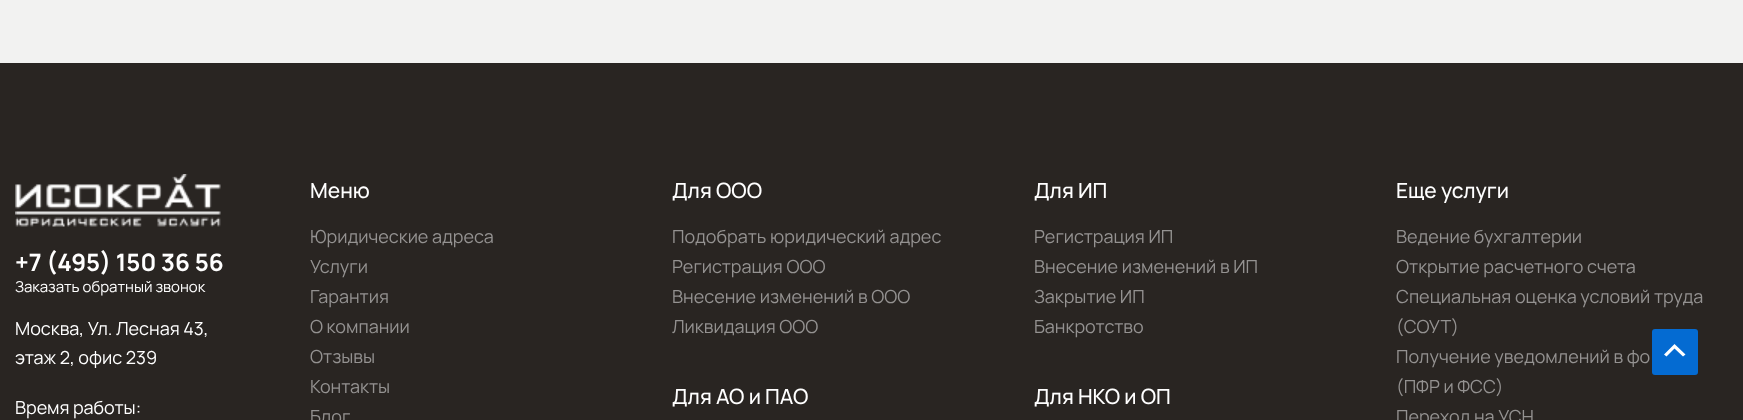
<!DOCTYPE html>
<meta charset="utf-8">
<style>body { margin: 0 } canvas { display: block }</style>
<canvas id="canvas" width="1743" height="420"></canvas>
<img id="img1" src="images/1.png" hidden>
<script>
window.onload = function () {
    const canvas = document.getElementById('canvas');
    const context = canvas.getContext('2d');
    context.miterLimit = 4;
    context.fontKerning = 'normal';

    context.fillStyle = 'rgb(242, 242, 241)';
    context.fillRect(0, 0, 1743, 420);
    context.fillStyle = 'rgb(41, 37, 34)';
    context.fillRect(0, 63, 1743, 357);
    context.drawImage(document.getElementById('img1'), 15, 174, 206, 53);
    context.fillStyle = 'rgb(4, 107, 210)';
    context.beginPath();
    context.roundRect(1652, 329, 46, 46, 3);
    context.fill();
    context.fillStyle = 'rgb(255, 255, 255)';
    context.beginPath();
    context.moveTo(1685.5, 354.5);
    context.lineTo(1674.5, 344);
    context.lineTo(1664, 354.5);
    context.lineTo(1666.5, 356.5);
    context.lineTo(1674.5, 348.5);
    context.lineTo(1683, 356.5);
    context.closePath();
    context.fill();
    context.font = 'bold 24px Manrope';
    context.fillText('+7 (495) 150 36 56', 15, 271);
    context.font = '15px Manrope';
    context.fillText('Заказать обратный звонок', 15, 292);
    context.font = '18px Manrope';
    context.fillText('Москва, Ул. Лесная 43,', 15, 335);
    context.fillText('этаж 2, офис 239', 15, 364);
    context.fillText('Время работы:', 15, 414);
    context.font = '500 21px Manrope';
    context.fillText('Меню', 310, 198);
    context.font = '18px Manrope';
    context.fillStyle = 'rgb(148, 146, 145)';
    context.fillText('Юридические адреса', 310, 243);
    context.fillText('Услуги', 310, 273);
    context.fillText('Гарантия', 310, 303);
    context.fillText('О компании', 310, 333);
    context.fillText('Отзывы', 310, 363);
    context.fillText('Контакты', 310, 393);
    context.fillText('Блог', 310, 423);
    context.font = '500 21px Manrope';
    context.fillStyle = 'rgb(255, 255, 255)';
    context.fillText('Для ООО', 672, 198);
    context.font = '18px Manrope';
    context.fillStyle = 'rgb(148, 146, 145)';
    context.fillText('Подобрать юридический адрес', 672, 243);
    context.fillText('Регистрация ООО', 672, 273);
    context.fillText('Внесение изменений в ООО', 672, 303);
    context.fillText('Ликвидация ООО', 672, 333);
    context.font = '500 21px Manrope';
    context.fillStyle = 'rgb(255, 255, 255)';
    context.fillText('Для АО и ПАО', 672, 404);
    context.fillText('Для ИП', 1034, 198);
    context.font = '18px Manrope';
    context.fillStyle = 'rgb(148, 146, 145)';
    context.fillText('Регистрация ИП', 1034, 243);
    context.fillText('Внесение изменений в ИП', 1034, 273);
    context.fillText('Закрытие ИП', 1034, 303);
    context.fillText('Банкротство', 1034, 333);
    context.font = '500 21px Manrope';
    context.fillStyle = 'rgb(255, 255, 255)';
    context.fillText('Для НКО и ОП', 1034, 404);
    context.fillText('Еще услуги', 1396, 198);
    context.font = '18px Manrope';
    context.fillStyle = 'rgb(148, 146, 145)';
    context.fillText('Ведение бухгалтерии', 1396, 243);
    context.fillText('Открытие расчетного счета', 1396, 273);
    context.fillText('Специальная оценка условий труда', 1396, 303);
    context.fillText('(СОУТ)', 1396, 333);
    context.fillText('Получение уведомлений в фо', 1396, 363);
    context.fillText('(ПФР и ФСС)', 1396, 393);
    context.fillText('Переход на УСН', 1396, 423);
};
</script>
